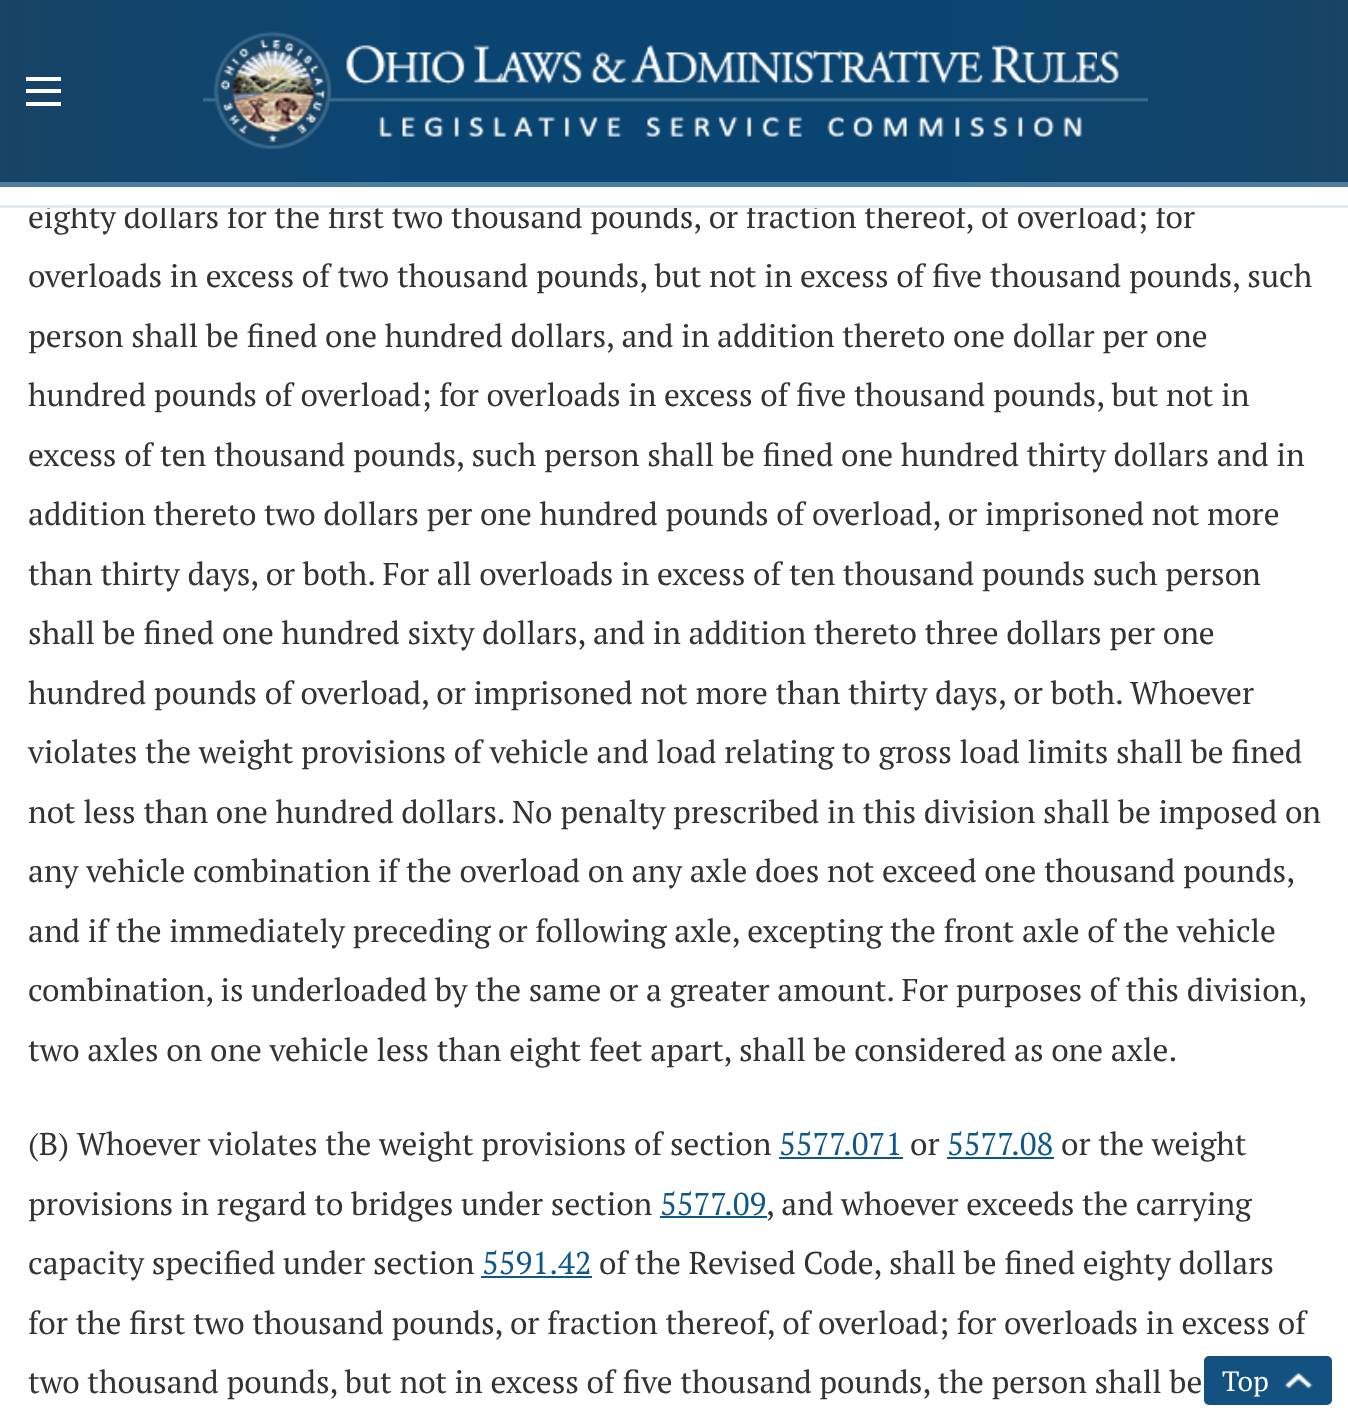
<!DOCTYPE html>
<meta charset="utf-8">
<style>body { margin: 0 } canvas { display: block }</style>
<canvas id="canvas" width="1348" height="1422"></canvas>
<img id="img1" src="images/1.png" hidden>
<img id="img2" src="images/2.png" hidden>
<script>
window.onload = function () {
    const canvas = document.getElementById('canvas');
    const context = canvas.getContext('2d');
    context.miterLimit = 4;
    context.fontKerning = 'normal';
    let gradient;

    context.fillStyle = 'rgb(255, 255, 255)';
    context.fillRect(0, 0, 1348, 1422);
    gradient = context.createLinearGradient(0, 91, 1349, 91);
    gradient.addColorStop(0, 'rgb(24, 68, 102)');
    gradient.addColorStop(0.3, 'rgb(10, 69, 114)');
    gradient.addColorStop(0.7, 'rgb(10, 69, 114)');
    gradient.addColorStop(1, 'rgb(24, 68, 102)');
    context.fillStyle = gradient;
    context.fillRect(0, 0, 1348, 182);
    context.drawImage(document.getElementById('img1'), 203, 31, 945, 119);
    context.fillStyle = 'rgb(75, 126, 163)';
    context.fillRect(0, 182, 1348, 5);
    context.fillStyle = 'rgb(255, 255, 255)';
    context.fillRect(26, 77, 35, 4);
    context.fillRect(26, 89, 35, 4);
    context.fillRect(26, 102, 35, 4);
    context.fillStyle = 'rgb(15, 87, 138)';
    context.fillRect(779, 1157, 124, 2);
    context.fillRect(947, 1157, 107, 2);
    context.fillRect(660, 1216, 107, 2);
    context.fillRect(481, 1276, 111, 2);
    context.fillStyle = 'rgb(19, 81, 129)';
    context.beginPath();
    context.roundRect(1204, 1356, 128, 49, 5);
    context.fill();
    context.drawImage(document.getElementById('img2'), 1284, 1372, 29, 17);
    context.font = '31.5px PT Serif';
    context.fillStyle = 'rgb(51, 51, 51)';
    context.fillText('eighty dollars for the first two thousand pounds, or fraction thereof, of overload; for', 28, 228);
    context.fillStyle = 'rgb(255, 255, 255)';
    context.fillRect(72, 204, 1096, 1);
    context.fillStyle = 'rgb(226, 234, 240)';
    context.fillRect(0, 205, 1348, 3);
    context.fillStyle = 'rgb(51, 51, 51)';
    context.fillText('overloads in excess of two thousand pounds, but not in excess of five thousand pounds, such', 28, 287);
    context.fillText('person shall be fined one hundred dollars, and in addition thereto one dollar per one', 28, 347);
    context.fillText('hundred pounds of overload; for overloads in excess of five thousand pounds, but not in', 28, 406);
    context.fillText('excess of ten thousand pounds, such person shall be fined one hundred thirty dollars and in', 28, 466);
    context.fillText('addition thereto two dollars per one hundred pounds of overload, or imprisoned not more', 28, 525);
    context.fillText('than thirty days, or both. For all overloads in excess of ten thousand pounds such person', 28, 585);
    context.fillText('shall be fined one hundred sixty dollars, and in addition thereto three dollars per one', 28, 644);
    context.fillText('hundred pounds of overload, or imprisoned not more than thirty days, or both. Whoever', 28, 704);
    context.fillText('violates the weight provisions of vehicle and load relating to gross load limits shall be fined', 28, 763);
    context.fillText('not less than one hundred dollars. No penalty prescribed in this division shall be imposed on', 28, 823);
    context.fillText('any vehicle combination if the overload on any axle does not exceed one thousand pounds,', 28, 882);
    context.fillText('and if the immediately preceding or following axle, excepting the front axle of the vehicle', 28, 942);
    context.fillText('combination, is underloaded by the same or a greater amount. For purposes of this division,', 28, 1001);
    context.fillText('two axles on one vehicle less than eight feet apart, shall be considered as one axle.', 28, 1061);
    context.fillText('(B) Whoever violates the weight provisions of section', 28, 1155);
    context.fillStyle = 'rgb(15, 87, 138)';
    context.fillText('5577.071', 779, 1155);
    context.fillStyle = 'rgb(51, 51, 51)';
    context.fillText('or', 910, 1155);
    context.fillStyle = 'rgb(15, 87, 138)';
    context.fillText('5577.08', 947, 1155);
    context.fillStyle = 'rgb(51, 51, 51)';
    context.fillText('or the weight', 1061, 1155);
    context.fillText('provisions in regard to bridges under section', 28, 1215);
    context.fillStyle = 'rgb(15, 87, 138)';
    context.fillText('5577.09', 660, 1215);
    context.fillStyle = 'rgb(51, 51, 51)';
    context.fillText(', and whoever exceeds the carrying', 766, 1215);
    context.fillText('capacity specified under section', 28, 1274);
    context.fillStyle = 'rgb(15, 87, 138)';
    context.fillText('5591.42', 482, 1274);
    context.fillStyle = 'rgb(51, 51, 51)';
    context.fillText('of the Revised Code, shall be fined eighty dollars', 599, 1274);
    context.fillText('for the first two thousand pounds, or fraction thereof, of overload; for overloads in excess of', 28, 1334);
    context.fillText('two thousand pounds, but not in excess of five thousand pounds, the person shall be', 28, 1393);
    context.font = '28px PT Serif';
    context.fillStyle = 'rgb(255, 255, 255)';
    context.fillText('Top', 1222, 1391);
};
</script>
